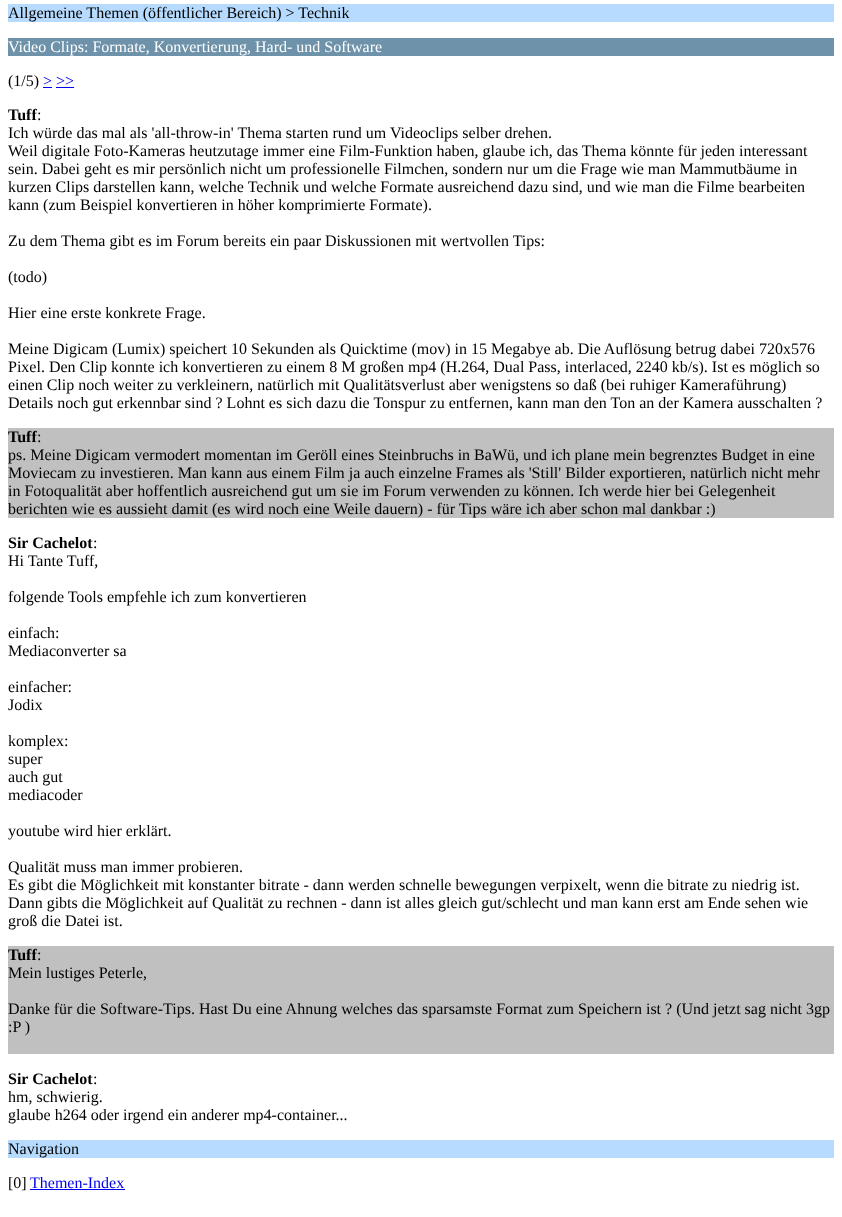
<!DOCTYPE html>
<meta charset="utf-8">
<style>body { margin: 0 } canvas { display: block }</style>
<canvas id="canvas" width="842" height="1217"></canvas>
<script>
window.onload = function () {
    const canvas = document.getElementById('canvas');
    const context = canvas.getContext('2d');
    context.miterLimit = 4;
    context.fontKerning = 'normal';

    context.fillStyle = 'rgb(255, 255, 255)';
    context.fillRect(0, 0, 842, 1217);
    context.fillStyle = 'rgb(182, 219, 255)';
    context.fillRect(8, 4, 826, 18);
    context.fillStyle = 'rgb(109, 146, 170)';
    context.fillRect(8, 38, 826, 18);
    context.fillStyle = 'rgb(0, 0, 238)';
    context.fillRect(43, 87, 9, 1);
    context.fillRect(56, 87, 18, 1);
    context.fillStyle = 'rgb(192, 192, 192)';
    context.fillRect(8, 428, 826, 90);
    context.fillRect(8, 946, 826, 108);
    context.fillStyle = 'rgb(182, 219, 255)';
    context.fillRect(8, 1140, 826, 18);
    context.fillStyle = 'rgb(0, 0, 238)';
    context.fillRect(30, 1189, 95, 1);
    context.font = '16px Liberation Serif';
    context.fillStyle = 'rgb(0, 0, 0)';
    context.fillText('Allgemeine Themen (öffentlicher Bereich) > Technik', 8, 18);
    context.fillStyle = 'rgb(255, 255, 255)';
    context.fillText('Video Clips: Formate, Konvertierung, Hard- und Software', 8, 52);
    context.fillStyle = 'rgb(0, 0, 0)';
    context.fillText('(1/5)', 8, 86);
    context.fillStyle = 'rgb(0, 0, 238)';
    context.fillText('> >>', 43, 86);
    context.font = 'bold 16px Liberation Serif';
    context.fillStyle = 'rgb(0, 0, 0)';
    context.fillText('Tuff', 8, 120);
    context.font = '16px Liberation Serif';
    context.fillText(':', 37, 120);
    context.fillText('Ich würde das mal als \'all-throw-in\' Thema starten rund um Videoclips selber drehen.', 8, 138);
    context.fillText('Weil digitale Foto-Kameras heutzutage immer eine Film-Funktion haben, glaube ich, das Thema könnte für jeden interessant', 8, 156);
    context.fillText('sein. Dabei geht es mir persönlich nicht um professionelle Filmchen, sondern nur um die Frage wie man Mammutbäume in', 8, 174);
    context.fillText('kurzen Clips darstellen kann, welche Technik und welche Formate ausreichend dazu sind, und wie man die Filme bearbeiten', 8, 192);
    context.fillText('kann (zum Beispiel konvertieren in höher komprimierte Formate).', 8, 210);
    context.fillText('Zu dem Thema gibt es im Forum bereits ein paar Diskussionen mit wertvollen Tips:', 8, 246);
    context.fillText('(todo)', 8, 282);
    context.fillText('Hier eine erste konkrete Frage.', 8, 318);
    context.fillText('Meine Digicam (Lumix) speichert 10 Sekunden als Quicktime (mov) in 15 Megabye ab. Die Auflösung betrug dabei 720x576', 8, 354);
    context.fillText('Pixel. Den Clip konnte ich konvertieren zu einem 8 M großen mp4 (H.264, Dual Pass, interlaced, 2240 kb/s). Ist es möglich so', 8, 372);
    context.fillText('einen Clip noch weiter zu verkleinern, natürlich mit Qualitätsverlust aber wenigstens so daß (bei ruhiger Kameraführung)', 8, 390);
    context.fillText('Details noch gut erkennbar sind ? Lohnt es sich dazu die Tonspur zu entfernen, kann man den Ton an der Kamera ausschalten ?', 8, 408);
    context.font = 'bold 16px Liberation Serif';
    context.fillText('Tuff', 8, 442);
    context.font = '16px Liberation Serif';
    context.fillText(':', 37, 442);
    context.fillText('ps. Meine Digicam vermodert momentan im Geröll eines Steinbruchs in BaWü, und ich plane mein begrenztes Budget in eine', 8, 460);
    context.fillText('Moviecam zu investieren. Man kann aus einem Film ja auch einzelne Frames als \'Still\' Bilder exportieren, natürlich nicht mehr', 8, 478);
    context.fillText('in Fotoqualität aber hoffentlich ausreichend gut um sie im Forum verwenden zu können. Ich werde hier bei Gelegenheit', 8, 496);
    context.fillText('berichten wie es aussieht damit (es wird noch eine Weile dauern) - für Tips wäre ich aber schon mal dankbar :)', 8, 514);
    context.font = 'bold 16px Liberation Serif';
    context.fillText('Sir Cachelot', 8, 548);
    context.font = '16px Liberation Serif';
    context.fillText(':', 93, 548);
    context.fillText('Hi Tante Tuff,', 8, 566);
    context.fillText('folgende Tools empfehle ich zum konvertieren', 8, 602);
    context.fillText('einfach:', 8, 638);
    context.fillText('Mediaconverter sa', 8, 656);
    context.fillText('einfacher:', 8, 692);
    context.fillText('Jodix', 8, 710);
    context.fillText('komplex:', 8, 746);
    context.fillText('super', 8, 764);
    context.fillText('auch gut', 8, 782);
    context.fillText('mediacoder', 8, 800);
    context.fillText('youtube wird hier erklärt.', 8, 836);
    context.fillText('Qualität muss man immer probieren.', 8, 872);
    context.fillText('Es gibt die Möglichkeit mit konstanter bitrate - dann werden schnelle bewegungen verpixelt, wenn die bitrate zu niedrig ist.', 8, 890);
    context.fillText('Dann gibts die Möglichkeit auf Qualität zu rechnen - dann ist alles gleich gut/schlecht und man kann erst am Ende sehen wie', 8, 908);
    context.fillText('groß die Datei ist.', 8, 926);
    context.font = 'bold 16px Liberation Serif';
    context.fillText('Tuff', 8, 960);
    context.font = '16px Liberation Serif';
    context.fillText(':', 37, 960);
    context.fillText('Mein lustiges Peterle,', 8, 978);
    context.fillText('Danke für die Software-Tips. Hast Du eine Ahnung welches das sparsamste Format zum Speichern ist ? (Und jetzt sag nicht 3gp', 8, 1014);
    context.fillText(':P )', 8, 1032);
    context.font = 'bold 16px Liberation Serif';
    context.fillText('Sir Cachelot', 8, 1084);
    context.font = '16px Liberation Serif';
    context.fillText(':', 93, 1084);
    context.fillText('hm, schwierig.', 8, 1102);
    context.fillText('glaube h264 oder irgend ein anderer mp4-container...', 8, 1120);
    context.fillText('Navigation', 8, 1154);
    context.fillText('[0]', 8, 1188);
    context.fillStyle = 'rgb(0, 0, 238)';
    context.fillText('Themen-Index', 30, 1188);
};
</script>
